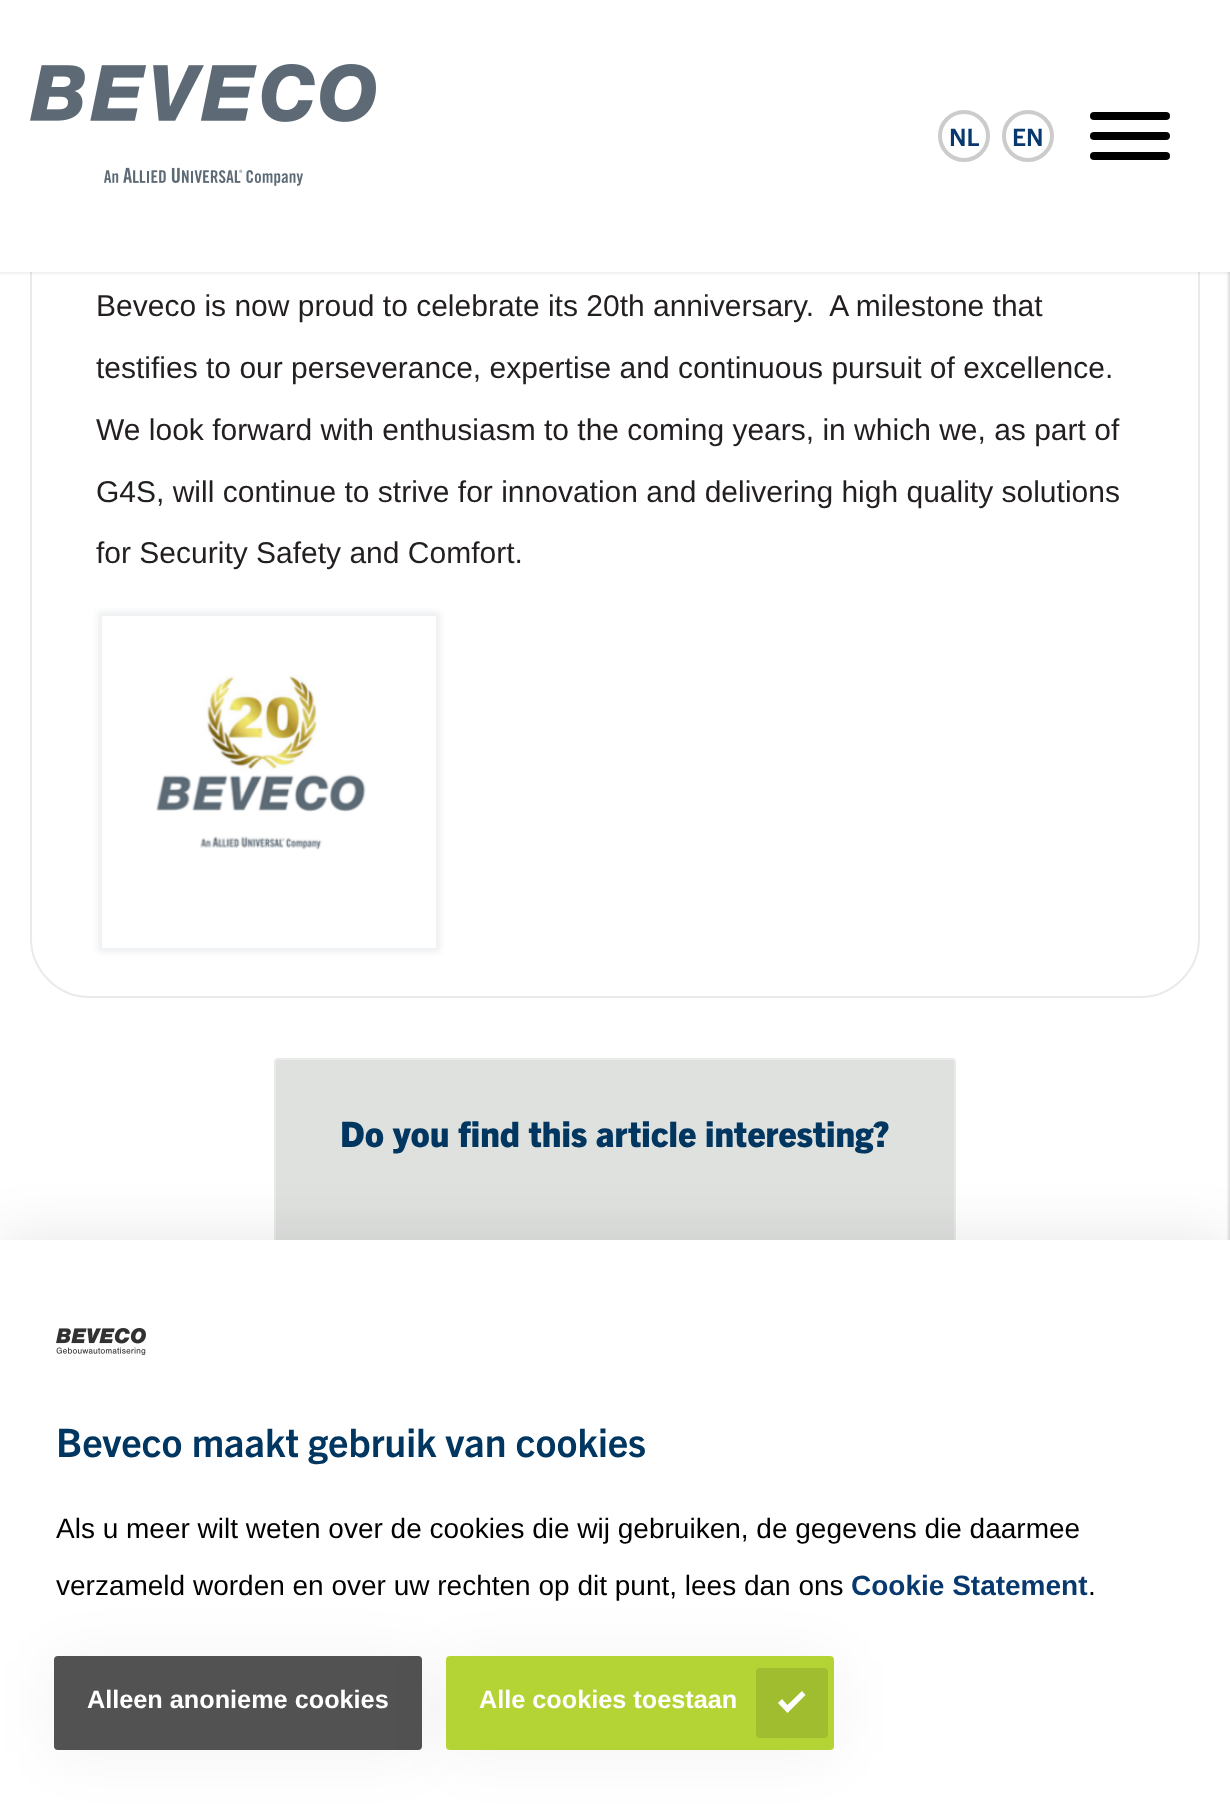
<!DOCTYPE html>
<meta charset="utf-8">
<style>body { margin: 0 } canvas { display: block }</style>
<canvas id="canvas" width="1230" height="1804"></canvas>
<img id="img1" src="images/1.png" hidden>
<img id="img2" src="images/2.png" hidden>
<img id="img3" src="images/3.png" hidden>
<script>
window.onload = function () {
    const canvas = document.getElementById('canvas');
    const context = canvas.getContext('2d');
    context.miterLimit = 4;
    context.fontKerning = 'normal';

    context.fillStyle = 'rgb(255, 255, 255)';
    context.fillRect(0, 0, 1230, 1804);
    context.beginPath();
    context.moveTo(34, -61);
    context.lineTo(1140, -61);
    context.bezierCurveTo(1172.5, -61, 1199, -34.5, 1199, -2);
    context.lineTo(1199, 938);
    context.bezierCurveTo(1199, 970.5, 1172.5, 997, 1140, 997);
    context.lineTo(90, 997);
    context.bezierCurveTo(57.5, 997, 31, 970.5, 31, 938);
    context.lineTo(31, -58);
    context.bezierCurveTo(31, -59.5, 32.5, -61, 34, -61);
    context.closePath();
    context.strokeStyle = 'rgb(234, 234, 234)';
    context.lineWidth = 2;
    context.stroke();
    context.fillStyle = 'rgba(94, 103, 103, 0.1)';
    context.filter = 'blur(1px)';
    context.beginPath();
    context.rect(0, 2, 1230, 272);
    context.fill();
    context.filter = 'none';
    context.fillStyle = 'rgba(35, 31, 32, 0.15)';
    context.filter = 'blur(1px)';
    context.beginPath();
    context.rect(1228, 0, 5, 1804);
    context.fill();
    context.filter = 'none';
    context.fillStyle = 'rgb(255, 255, 255)';
    context.fillRect(0, 0, 1230, 272);
    context.drawImage(document.getElementById('img1'), 30, 64, 346, 122);
    context.beginPath();
    context.arc(964, 136, 24, 0, 2 * Math.PI);
    context.strokeStyle = 'rgb(204, 204, 204)';
    context.lineWidth = 4;
    context.stroke();
    context.beginPath();
    context.arc(1028, 136, 24, 0, 2 * Math.PI);
    context.stroke();
    context.fillStyle = 'rgb(0, 0, 0)';
    context.beginPath();
    context.roundRect(1090, 132, 80, 8, 4);
    context.fill();
    context.beginPath();
    context.roundRect(1090, 112, 80, 8, 4);
    context.fill();
    context.beginPath();
    context.roundRect(1090, 152, 80, 8, 4);
    context.fill();
    context.save();
    context.beginPath();
    context.moveTo(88, 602);
    context.lineTo(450, 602);
    context.lineTo(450, 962);
    context.lineTo(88, 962);
    context.closePath();
    context.moveTo(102, 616);
    context.lineTo(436, 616);
    context.lineTo(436, 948);
    context.lineTo(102, 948);
    context.closePath();
    context.clip('evenodd');
    context.fillStyle = 'rgba(73, 89, 101, 0.1)';
    context.filter = 'blur(3px)';
    context.beginPath();
    context.rect(98, 612, 342, 340);
    context.fill();
    context.filter = 'none';
    context.restore();
    context.drawImage(document.getElementById('img2'), 156, 675, 210, 175);
    context.fillStyle = 'rgb(223, 225, 223)';
    context.beginPath();
    context.roundRect(275, 1059, 680, 244, 3);
    context.fill();
    context.strokeStyle = 'rgb(234, 234, 234)';
    context.lineWidth = 2;
    context.stroke();
    context.fillStyle = 'rgba(0, 0, 0, 0.1)';
    context.filter = 'blur(30px)';
    context.beginPath();
    context.rect(0, 1240, 1230, 564);
    context.fill();
    context.filter = 'none';
    context.fillStyle = 'rgb(255, 255, 255)';
    context.fillRect(0, 1240, 1230, 564);
    context.drawImage(document.getElementById('img3'), 56, 1328, 90, 27);
    context.fillStyle = 'rgba(0, 0, 0, 0.05)';
    context.filter = 'blur(30px)';
    context.beginPath();
    context.roundRect(54, 1660, 368, 94, 4);
    context.fill();
    context.filter = 'none';
    context.fillStyle = 'rgb(82, 82, 82)';
    context.beginPath();
    context.roundRect(54, 1656, 368, 94, 4);
    context.fill();
    context.fillStyle = 'rgba(0, 0, 0, 0.05)';
    context.filter = 'blur(30px)';
    context.beginPath();
    context.roundRect(446, 1660, 388, 94, 4);
    context.fill();
    context.filter = 'none';
    context.fillStyle = 'rgb(180, 212, 53)';
    context.beginPath();
    context.roundRect(446, 1656, 388, 94, 4);
    context.fill();
    context.fillStyle = 'rgb(160, 189, 47)';
    context.beginPath();
    context.roundRect(756, 1668, 72, 70, 4);
    context.fill();
    context.fillStyle = 'rgb(255, 255, 255)';
    context.beginPath();
    context.moveTo(802, 1691);
    context.lineTo(787.5, 1705);
    context.lineTo(782, 1699);
    context.lineTo(778, 1703);
    context.lineTo(787.5, 1713);
    context.lineTo(805.5, 1695);
    context.closePath();
    context.fill();
    context.font = 'bold 24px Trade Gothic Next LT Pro';
    context.fillStyle = 'rgb(8, 57, 110)';
    context.fillText('NL', 949, 146);
    context.fillText('EN', 1012, 146);
    context.font = '30px Liberation Sans';
    context.fillStyle = 'rgb(35, 31, 32)';
    context.fillText('Beveco is now proud to celebrate its 20th anniversary.  A milestone that', 96, 316);
    context.fillText('testifies to our perseverance, expertise and continuous pursuit of excellence.', 96, 378);
    context.fillText('We look forward with enthusiasm to the coming years, in which we, as part of', 96, 440);
    context.fillText('G4S, will continue to strive for innovation and delivering high quality solutions', 96, 502);
    context.fillText('for Security Safety and Comfort.', 96, 563);
    context.font = '800 35.25px Trade Gothic Next LT Pro';
    context.fillStyle = 'rgb(0, 54, 96)';
    context.fillText('Do you find this article interesting?', 340, 1147);
    context.font = 'bold 39.25px Trade Gothic Next LT Pro';
    context.fillText('Beveco maakt gebruik van cookies', 56, 1457);
    context.font = '28px Liberation Sans';
    context.fillStyle = 'rgb(0, 0, 0)';
    context.fillText('Als u meer wilt weten over de cookies die wij gebruiken, de gegevens die daarmee', 56, 1538);
    context.fillText('verzameld worden en over uw rechten op dit punt, lees dan ons', 56, 1595);
    context.font = 'bold 28px Liberation Sans';
    context.fillStyle = 'rgb(8, 57, 110)';
    context.fillText('Cookie Statement', 851, 1595);
    context.font = '28px Liberation Sans';
    context.fillStyle = 'rgb(0, 0, 0)';
    context.fillText('.', 1088, 1595);
    context.font = 'bold 25.25px Liberation Sans';
    context.fillStyle = 'rgb(255, 255, 255)';
    context.fillText('Alleen anonieme cookies', 87, 1708);
    context.fillText('Alle cookies toestaan', 479, 1708);
};
</script>
